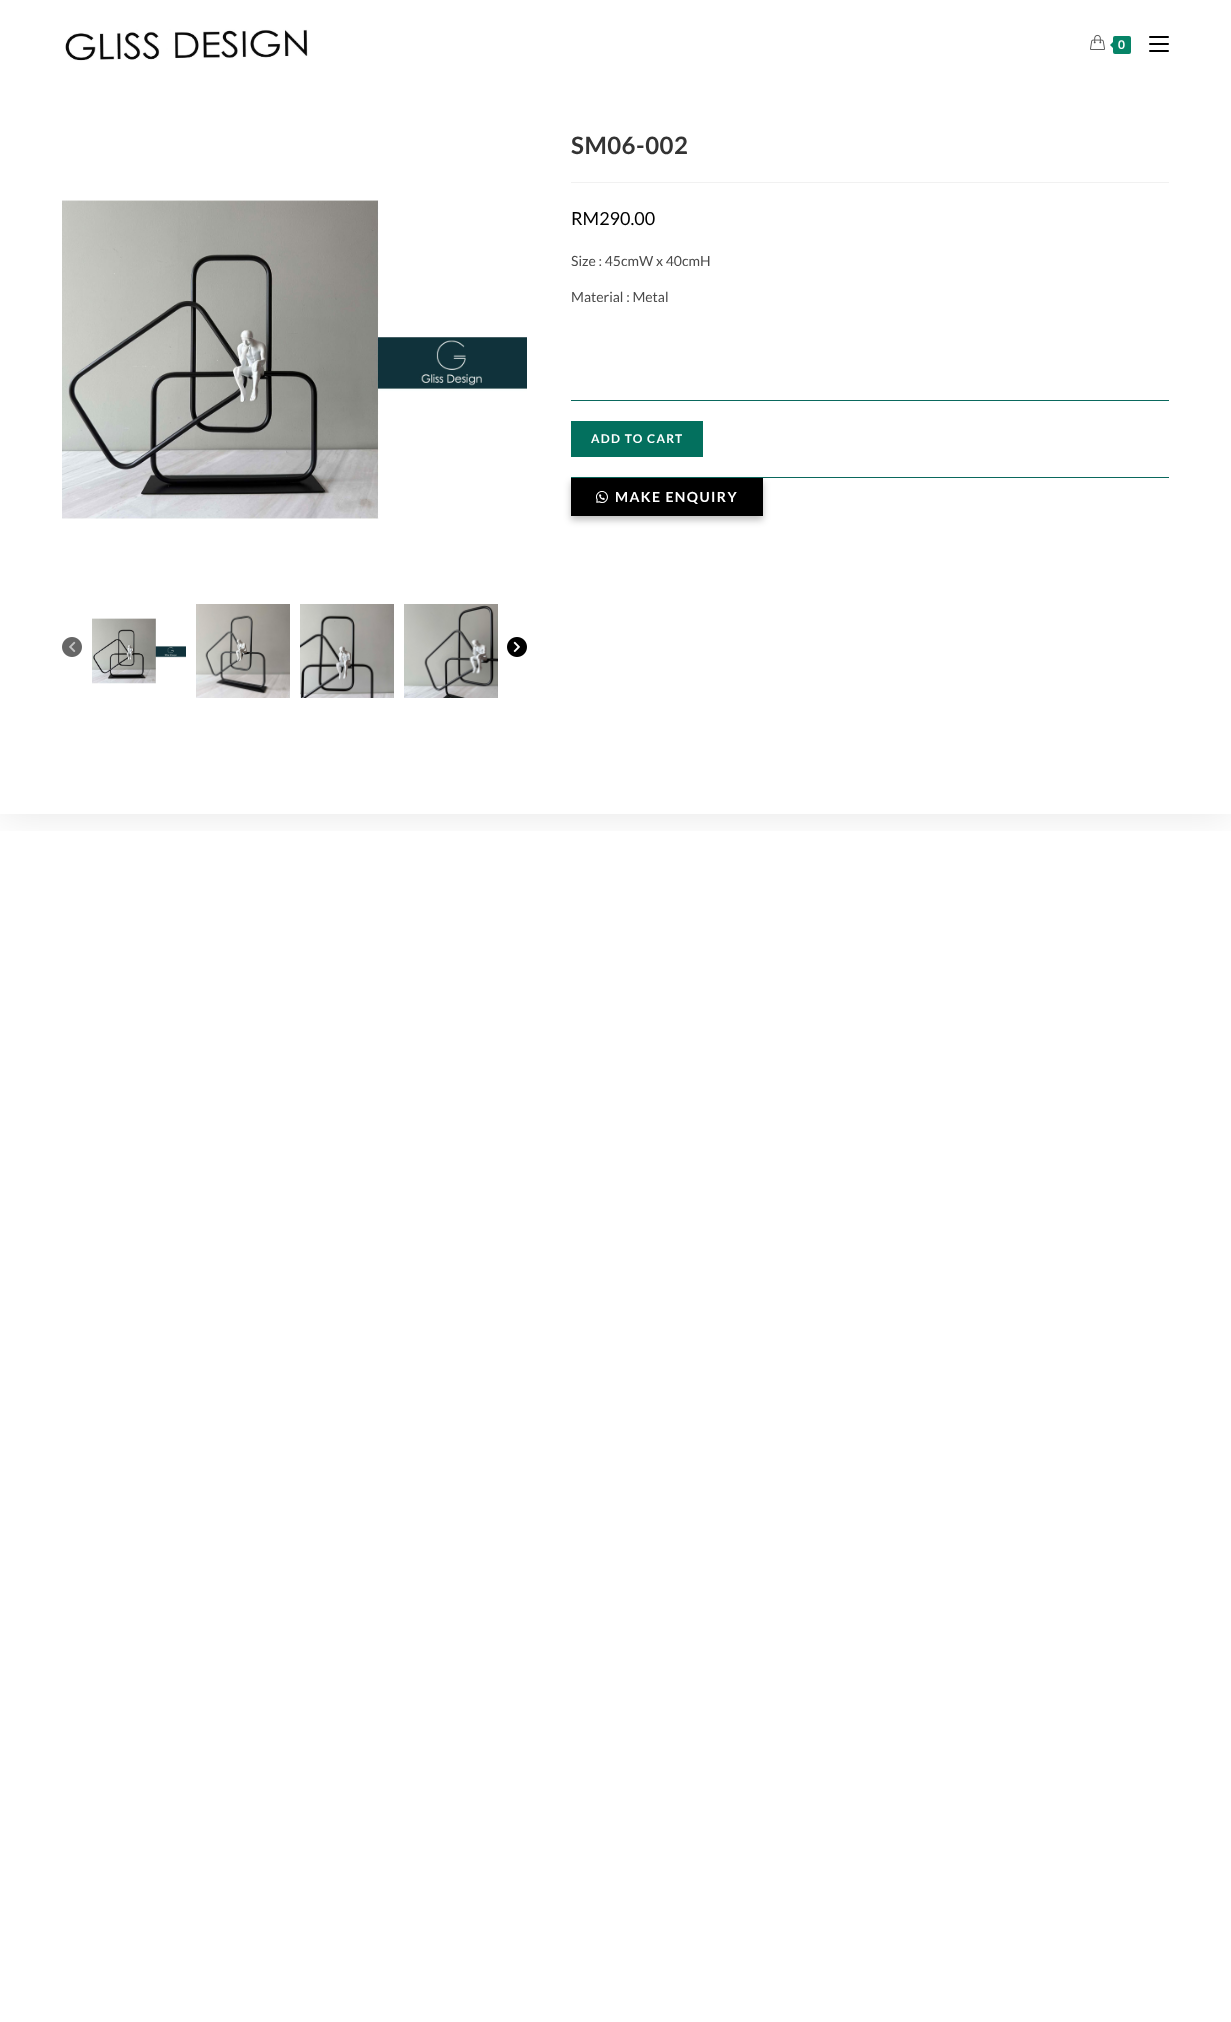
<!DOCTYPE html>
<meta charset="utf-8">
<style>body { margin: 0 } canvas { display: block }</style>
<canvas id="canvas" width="1231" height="2022"></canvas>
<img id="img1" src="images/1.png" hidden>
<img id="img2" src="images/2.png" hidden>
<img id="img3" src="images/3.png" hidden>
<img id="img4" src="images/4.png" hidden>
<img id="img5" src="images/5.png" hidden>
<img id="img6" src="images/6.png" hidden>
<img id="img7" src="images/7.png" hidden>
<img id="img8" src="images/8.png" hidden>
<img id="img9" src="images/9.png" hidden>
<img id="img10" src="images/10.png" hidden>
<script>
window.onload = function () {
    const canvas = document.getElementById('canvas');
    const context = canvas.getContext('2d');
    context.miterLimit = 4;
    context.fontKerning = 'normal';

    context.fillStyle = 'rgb(255, 255, 255)';
    context.fillRect(0, 0, 1231, 2022);
    context.save();
    context.beginPath();
    context.rect(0, 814, 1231, 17);
    context.clip();
    context.fillStyle = 'rgba(0, 0, 0, 0.1)';
    context.filter = 'blur(20px)';
    context.beginPath();
    context.rect(0, 78, 1231, 736);
    context.fill();
    context.filter = 'none';
    context.restore();
    context.fillRect(0, 52, 1231, 26);
    context.drawImage(document.getElementById('img1'), 65, 29, 243, 32);
    context.drawImage(document.getElementById('img2'), 1090, 34, 15, 16);
    context.fillStyle = 'rgb(6, 132, 103)';
    context.beginPath();
    context.roundRect(1113, 36, 18, 18, 2);
    context.fill();
    context.beginPath();
    context.moveTo(1115, 40);
    context.lineTo(1115, 50);
    context.lineTo(1110, 45);
    context.closePath();
    context.fill();
    context.fillStyle = 'rgb(0, 0, 0)';
    context.beginPath();
    context.roundRect(1149, 43, 20, 2, 1);
    context.fill();
    context.beginPath();
    context.roundRect(1149, 36, 20, 2, 1);
    context.fill();
    context.beginPath();
    context.roundRect(1149, 50, 20, 2, 1);
    context.fill();
    context.drawImage(document.getElementById('img3'), 62, 200, 465, 319);
    context.drawImage(document.getElementById('img4'), 62, 637, 20, 20);
    context.drawImage(document.getElementById('img5'), 92, 618, 94, 66);
    context.drawImage(document.getElementById('img6'), 196, 604, 94, 94);
    context.drawImage(document.getElementById('img7'), 300, 604, 94, 94);
    context.drawImage(document.getElementById('img8'), 404, 604, 94, 94);
    context.drawImage(document.getElementById('img9'), 507, 637, 20, 20);
    context.fillStyle = 'rgb(241, 241, 241)';
    context.fillRect(571, 182, 598, 1);
    context.fillStyle = 'rgb(10, 104, 93)';
    context.fillRect(571, 400, 598, 1);
    context.fillRect(571, 477, 598, 1);
    context.fillStyle = 'rgb(3, 112, 94)';
    context.fillRect(571, 421, 132, 36);
    context.fillStyle = 'rgba(0, 0, 0, 0.25)';
    context.filter = 'blur(3.5px)';
    context.beginPath();
    context.rect(571, 482, 192, 38);
    context.fill();
    context.filter = 'none';
    context.fillStyle = 'rgb(0, 0, 0)';
    context.fillRect(571, 478, 192, 38);
    context.drawImage(document.getElementById('img10'), 596, 491, 12, 12);
    context.letterSpacing = '1px';
    context.font = 'bold 12px Lato';
    context.fillStyle = 'rgb(255, 255, 255)';
    context.fillText('0', 1118, 49);
    context.letterSpacing = '0.5px';
    context.font = 'bold 24px Lato';
    context.fillStyle = 'rgb(51, 51, 51)';
    context.fillText('SM06-002', 571, 154);
    context.letterSpacing = '0px';
    context.font = '18px Lato';
    context.fillStyle = 'rgb(0, 0, 0)';
    context.fillText('RM290.00', 571, 225);
    context.font = '14px Lato';
    context.fillStyle = 'rgb(74, 74, 74)';
    context.fillText('Size : 45cmW x 40cmH', 571, 266);
    context.fillText('Material : Metal', 571, 302);
    context.letterSpacing = '1.25px';
    context.font = 'bold 12px Lato';
    context.fillStyle = 'rgb(255, 255, 255)';
    context.fillText('ADD TO CART', 591, 443);
    context.letterSpacing = '1.4px';
    context.font = 'bold 14px Lato';
    context.fillText('MAKE ENQUIRY', 615, 502);
};
</script>
